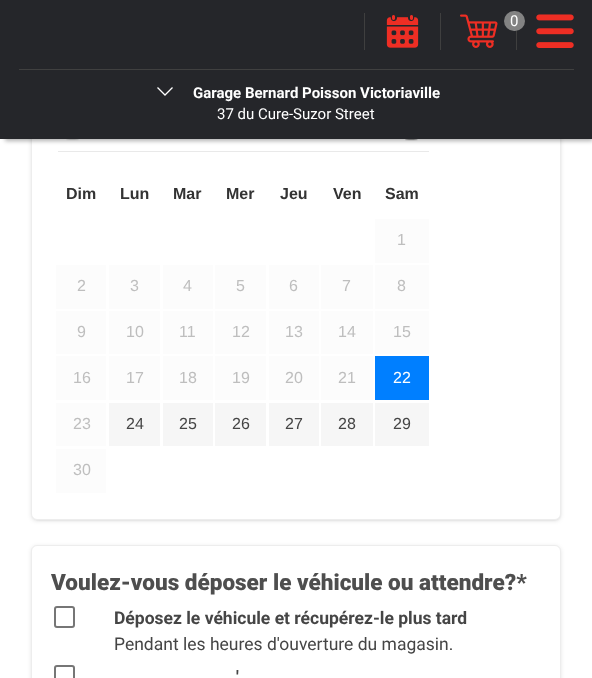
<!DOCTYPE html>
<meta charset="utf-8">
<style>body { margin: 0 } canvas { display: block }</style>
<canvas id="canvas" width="592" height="678"></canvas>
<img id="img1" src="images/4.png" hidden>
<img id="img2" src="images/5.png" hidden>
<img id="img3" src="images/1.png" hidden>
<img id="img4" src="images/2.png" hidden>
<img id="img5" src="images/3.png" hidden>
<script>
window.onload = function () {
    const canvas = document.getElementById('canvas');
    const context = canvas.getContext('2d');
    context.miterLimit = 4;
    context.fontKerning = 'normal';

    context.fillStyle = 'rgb(255, 255, 255)';
    context.fillRect(0, 0, 592, 678);
    context.fillStyle = 'rgba(0, 0, 0, 0.1)';
    context.filter = 'blur(1px)';
    context.beginPath();
    context.roundRect(33, 36, 527, 484, 5);
    context.fill();
    context.filter = 'none';
    context.filter = 'blur(2px)';
    context.beginPath();
    context.roundRect(31, 35, 530, 486, 6);
    context.fill();
    context.filter = 'none';
    context.fillStyle = 'rgb(255, 255, 255)';
    context.beginPath();
    context.roundRect(31.5, 34.5, 529, 485, 5.5);
    context.fill();
    context.strokeStyle = 'rgb(237, 237, 237)';
    context.stroke();
    context.drawImage(document.getElementById('img1'), 66, 139, 13, 2);
    context.drawImage(document.getElementById('img2'), 405, 139, 13, 2);
    context.fillStyle = 'rgba(0, 0, 0, 0.31)';
    context.filter = 'blur(2px)';
    context.beginPath();
    context.rect(5, 8, 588, 133);
    context.fill();
    context.filter = 'none';
    context.fillStyle = 'rgb(37, 38, 42)';
    context.fillRect(0, 0, 592, 139);
    context.fillStyle = 'rgb(63, 63, 63)';
    context.fillRect(364, 13, 1, 37);
    context.drawImage(document.getElementById('img3'), 386, 15, 33, 33);
    context.fillRect(440, 13, 1, 37);
    context.drawImage(document.getElementById('img4'), 460, 14, 38, 34);
    context.fillRect(516, 30, 1, 20);
    context.fillStyle = 'rgb(131, 131, 131)';
    context.beginPath();
    context.roundRect(504, 11, 21, 20, 10);
    context.fill();
    context.drawImage(document.getElementById('img5'), 536, 14, 38, 34);
    context.fillStyle = 'rgb(64, 64, 64)';
    context.fillRect(19, 69, 555, 1);
    context.beginPath();
    context.moveTo(172.5, 87.5);
    context.lineTo(165, 95);
    context.lineTo(157.5, 87.5);
    context.strokeStyle = 'rgb(255, 255, 255)';
    context.lineWidth = 1.3;
    context.stroke();
    context.fillStyle = 'rgb(233, 233, 233)';
    context.fillRect(58, 151, 371, 1);
    context.fillStyle = 'rgb(252, 252, 252)';
    context.fillRect(375, 219, 54, 44);
    context.fillRect(56, 265, 50, 44);
    context.fillRect(109, 265, 51, 44);
    context.fillRect(163, 265, 50, 44);
    context.fillRect(215, 265, 51, 44);
    context.fillRect(269, 265, 50, 44);
    context.fillRect(321, 265, 52, 44);
    context.fillRect(375, 265, 54, 44);
    context.fillRect(56, 311, 50, 43);
    context.fillRect(109, 311, 51, 43);
    context.fillRect(163, 311, 50, 43);
    context.fillRect(215, 311, 51, 43);
    context.fillRect(269, 311, 50, 43);
    context.fillRect(321, 311, 52, 43);
    context.fillRect(375, 311, 54, 43);
    context.fillRect(56, 356, 50, 44);
    context.fillRect(109, 356, 51, 44);
    context.fillRect(163, 356, 50, 44);
    context.fillRect(215, 356, 51, 44);
    context.fillRect(269, 356, 50, 44);
    context.fillRect(321, 356, 52, 44);
    context.fillStyle = 'rgb(0, 127, 255)';
    context.fillRect(375, 356, 54, 44);
    context.fillStyle = 'rgb(252, 252, 252)';
    context.fillRect(56, 403, 50, 43);
    context.fillStyle = 'rgb(246, 246, 246)';
    context.fillRect(109, 403, 51, 43);
    context.fillRect(163, 403, 50, 43);
    context.fillRect(215, 403, 51, 43);
    context.fillRect(269, 403, 50, 43);
    context.fillRect(321, 403, 52, 43);
    context.fillRect(375, 403, 54, 43);
    context.fillStyle = 'rgb(252, 252, 252)';
    context.fillRect(56, 449, 50, 44);
    context.fillStyle = 'rgba(0, 0, 0, 0.1)';
    context.filter = 'blur(2px)';
    context.beginPath();
    context.roundRect(31, 546, 530, 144, 6);
    context.fill();
    context.filter = 'none';
    context.fillStyle = 'rgb(255, 255, 255)';
    context.beginPath();
    context.roundRect(31.5, 545.5, 529, 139, 5.5);
    context.fill();
    context.strokeStyle = 'rgb(237, 237, 237)';
    context.lineWidth = 1;
    context.stroke();
    context.beginPath();
    context.roundRect(55, 607, 19, 20, 2);
    context.strokeStyle = 'rgb(118, 118, 118)';
    context.lineWidth = 2;
    context.stroke();
    context.beginPath();
    context.roundRect(55, 666, 19, 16, 2);
    context.stroke();
    context.font = '15px Roboto';
    context.fillText('0', 510, 26);
    context.font = 'bold 15px Roboto';
    context.fillText('Garage Bernard Poisson Victoriaville', 193, 98);
    context.font = '15px Roboto';
    context.fillText('37 du Cure-Suzor Street', 217, 119);
    context.font = 'bold 16px Liberation Sans';
    context.fillStyle = 'rgb(51, 51, 51)';
    context.fillText('Dim', 66, 199);
    context.fillText('Lun', 120, 199);
    context.fillText('Mar', 173, 199);
    context.fillText('Mer', 226, 199);
    context.fillText('Jeu', 280, 199);
    context.fillText('Ven', 333, 199);
    context.fillText('Sam', 385, 199);
    context.font = '16px Liberation Sans';
    context.fillStyle = 'rgb(190, 190, 190)';
    context.fillText('1', 397, 245);
    context.fillText('2', 77, 291);
    context.fillText('3', 130, 291);
    context.fillText('4', 183, 291);
    context.fillText('5', 236, 291);
    context.fillText('6', 289, 291);
    context.fillText('7', 342, 291);
    context.fillText('8', 397, 291);
    context.fillText('9', 77, 337);
    context.fillText('10', 126, 337);
    context.fillText('11', 179, 337);
    context.fillText('12', 232, 337);
    context.fillText('13', 285, 337);
    context.fillText('14', 338, 337);
    context.fillText('15', 393, 337);
    context.fillText('16', 73, 383);
    context.fillText('17', 126, 383);
    context.fillText('18', 179, 383);
    context.fillText('19', 232, 383);
    context.fillText('20', 285, 383);
    context.fillText('21', 338, 383);
    context.fillStyle = 'rgb(255, 255, 255)';
    context.fillText('22', 393, 383);
    context.fillStyle = 'rgb(190, 190, 190)';
    context.fillText('23', 73, 429);
    context.fillStyle = 'rgb(69, 69, 69)';
    context.fillText('24', 126, 429);
    context.fillText('25', 179, 429);
    context.fillText('26', 232, 429);
    context.fillText('27', 285, 429);
    context.fillText('28', 338, 429);
    context.fillText('29', 393, 429);
    context.fillStyle = 'rgb(190, 190, 190)';
    context.fillText('30', 73, 475);
    context.font = '900 22.5px Roboto';
    context.fillStyle = 'rgb(78, 78, 78)';
    context.fillText('Voulez-vous déposer le véhicule ou attendre?*', 51, 590);
    context.font = 'bold 17.5px Roboto';
    context.fillStyle = 'rgb(69, 69, 69)';
    context.fillText('Déposez le véhicule et récupérez-le plus tard', 114, 624);
    context.font = '17.5px Roboto';
    context.fillText('Pendant les heures d\'ouverture du magasin.', 114, 650);
    context.font = 'bold 17.5px Roboto';
    context.fillText('\'', 236, 683);
};
</script>
